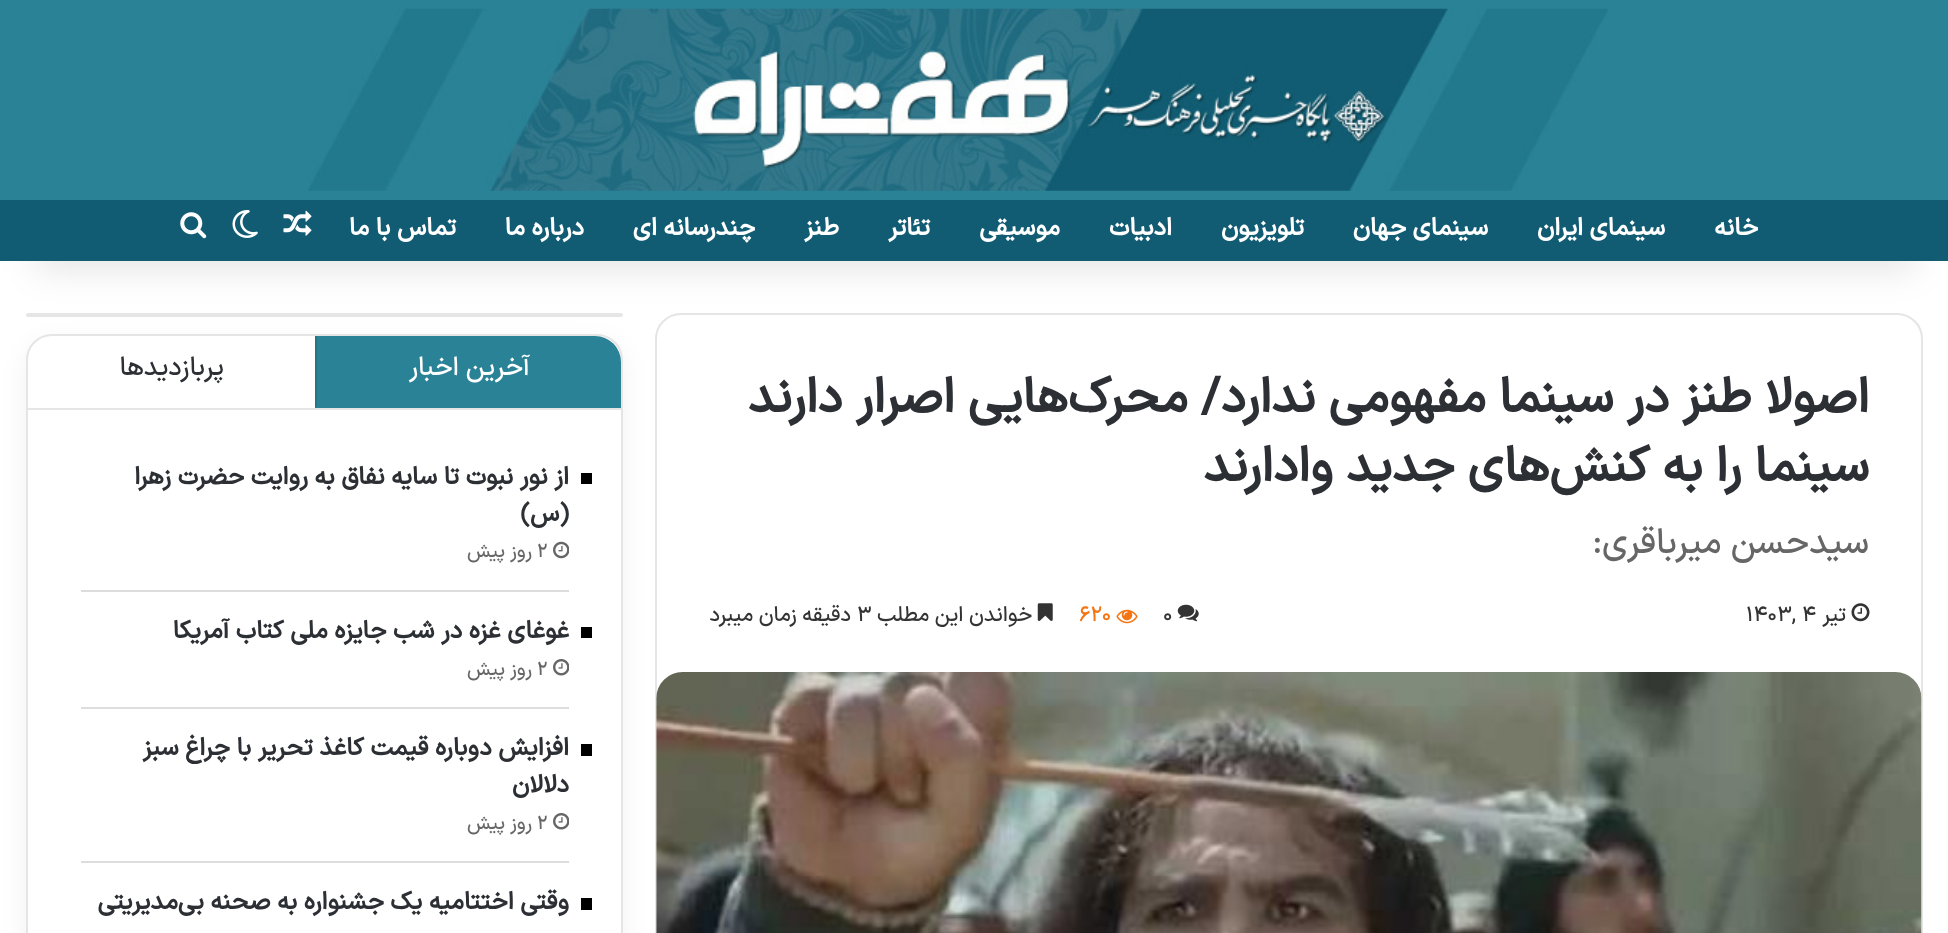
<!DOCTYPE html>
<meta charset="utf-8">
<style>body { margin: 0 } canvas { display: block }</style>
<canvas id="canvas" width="1948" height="933"></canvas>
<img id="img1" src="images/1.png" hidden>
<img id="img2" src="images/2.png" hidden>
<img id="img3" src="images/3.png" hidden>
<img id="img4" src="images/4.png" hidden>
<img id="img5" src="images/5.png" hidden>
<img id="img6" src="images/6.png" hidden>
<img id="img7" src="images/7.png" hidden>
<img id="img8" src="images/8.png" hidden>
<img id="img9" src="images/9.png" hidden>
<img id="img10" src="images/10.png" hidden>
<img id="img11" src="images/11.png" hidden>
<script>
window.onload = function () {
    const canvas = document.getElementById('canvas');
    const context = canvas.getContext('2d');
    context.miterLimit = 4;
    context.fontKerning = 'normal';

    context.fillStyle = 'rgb(255, 255, 255)';
    context.fillRect(0, 0, 1948, 933);
    context.beginPath();
    context.roundRect(656, 314, 1266, 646, 25);
    context.strokeStyle = 'rgb(229, 229, 229)';
    context.lineWidth = 2;
    context.stroke();
    context.fillStyle = 'rgb(230, 230, 230)';
    context.beginPath();
    context.roundRect(26, 313, 597, 4, 2);
    context.fill();
    context.fillStyle = 'rgba(0, 0, 0, 0.1)';
    context.filter = 'blur(17.5px)';
    context.beginPath();
    context.rect(35, 79, 1880, 191);
    context.fill();
    context.filter = 'none';
    context.fillStyle = 'rgb(42, 130, 150)';
    context.fillRect(0, 0, 1948, 200);
    context.drawImage(document.getElementById('img1'), 308, 8, 1300, 183);
    context.fillStyle = 'rgb(17, 92, 115)';
    context.fillRect(0, 200, 1948, 61);
    context.drawImage(document.getElementById('img2'), 283, 210, 29, 26);
    context.drawImage(document.getElementById('img3'), 232, 210, 26, 28);
    context.drawImage(document.getElementById('img4'), 180, 212, 27, 27);
    context.drawImage(document.getElementById('img5'), 1851, 603, 19, 19);
    context.drawImage(document.getElementById('img6'), 1177, 604, 22, 18);
    context.drawImage(document.getElementById('img7'), 1116, 609, 22, 15);
    context.drawImage(document.getElementById('img8'), 1037, 603, 16, 18);
    context.drawImage(document.getElementById('img9'), 656, 672, 1266, 261);
    context.fillStyle = 'rgba(0, 0, 0, 0.05)';
    context.filter = 'blur(13px)';
    context.beginPath();
    context.roundRect(26, 343, 597, 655, 26);
    context.fill();
    context.filter = 'none';
    context.fillStyle = 'rgb(255, 255, 255)';
    context.beginPath();
    context.roundRect(27, 335, 595, 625, 25);
    context.fill();
    context.stroke();
    context.fillStyle = 'rgb(230, 230, 230)';
    context.fillRect(28, 408, 593, 2);
    context.fillStyle = 'rgb(42, 130, 150)';
    context.beginPath();
    context.roundRect(315, 336, 306, 72, [0, 26, 0, 0]);
    context.fill();
    context.fillStyle = 'rgb(38, 117, 135)';
    context.beginPath();
    context.moveTo(315, 336);
    context.lineTo(317, 336);
    context.lineTo(317, 406);
    context.lineTo(315, 408);
    context.closePath();
    context.fill();
    context.fillStyle = 'rgb(0, 0, 0)';
    context.fillRect(581, 473, 11, 11);
    context.fillStyle = 'rgb(221, 221, 221)';
    context.fillRect(81, 590, 488, 2);
    context.drawImage(document.getElementById('img10'), 553, 541, 16, 18);
    context.fillStyle = 'rgb(0, 0, 0)';
    context.fillRect(581, 627, 11, 11);
    context.fillStyle = 'rgb(221, 221, 221)';
    context.fillRect(81, 707, 488, 2);
    context.drawImage(document.getElementById('img11'), 553, 659, 16, 17);
    context.fillStyle = 'rgb(0, 0, 0)';
    context.fillRect(581, 744, 11, 12);
    context.fillStyle = 'rgb(221, 221, 221)';
    context.fillRect(81, 861, 488, 2);
    context.drawImage(document.getElementById('img11'), 553, 813, 16, 17);
    context.fillStyle = 'rgb(0, 0, 0)';
    context.fillRect(581, 898, 11, 12);
    context.direction = 'rtl';
    context.font = 'bold 24.5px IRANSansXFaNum';
    context.fillStyle = 'rgb(255, 255, 255)';
    context.fillText('خانه', 1758, 235);
    context.fillText('سینمای ایران', 1665, 235);
    context.fillText('سینمای جهان', 1488, 235);
    context.fillText('تلویزیون', 1304, 235);
    context.fillText('ادبیات', 1172, 235);
    context.fillText('موسیقی', 1060, 235);
    context.fillText('تئاتر', 930, 235);
    context.fillText('طنز', 839, 235);
    context.fillText('چندرسانه ای', 755, 235);
    context.fillText('درباره ما', 584, 235);
    context.fillText('تماس با ما', 456, 235);
    context.font = 'bold 49px IRANSansXFaNum';
    context.fillStyle = 'rgb(44, 47, 52)';
    context.fillText('اصولا طنز در سینما مفهومی ندارد/ محرک‌هایی اصرار دارند', 1869, 412);
    context.fillText('سینما را به کنش‌های جدید وادارند', 1869, 481);
    context.font = '500 35px IRANSansXFaNum';
    context.fillStyle = 'rgb(102, 102, 102)';
    context.fillText('سیدحسن میرباقری:', 1869, 553);
    context.font = '500 21px IRANSansXFaNum';
    context.fillStyle = 'rgb(51, 51, 51)';
    context.fillText('تیر', 1846, 621);
    context.direction = 'ltr';
    context.fillText('1403, 4', 1746, 621);
    context.fillText('0', 1163, 621);
    context.fillStyle = 'rgb(244, 117, 18)';
    context.fillText('620', 1079, 621);
    context.direction = 'rtl';
    context.fillStyle = 'rgb(51, 51, 51)';
    context.fillText('خواندن این مطلب', 1032, 621);
    context.direction = 'ltr';
    context.fillText('3', 857, 621);
    context.direction = 'rtl';
    context.fillText('دقیقه زمان میبرد', 851, 621);
    context.font = '500 26.25px IRANSansXFaNum';
    context.fillStyle = 'rgb(255, 255, 255)';
    context.fillText('آخرین اخبار', 530, 375);
    context.fillStyle = 'rgb(44, 47, 52)';
    context.fillText('پربازدیدها', 224, 375);
    context.font = 'bold 24.5px IRANSansXFaNum';
    context.fillText('از نور نبوت تا سایه نفاق به روایت حضرت زهرا', 569, 484);
    context.fillText('(س)', 569, 521);
    context.direction = 'ltr';
    context.font = '500 19px IRANSansXFaNum';
    context.fillStyle = 'rgb(102, 102, 102)';
    context.fillText('2', 537, 557);
    context.direction = 'rtl';
    context.fillText('روز پیش', 532, 557);
    context.font = 'bold 24.5px IRANSansXFaNum';
    context.fillStyle = 'rgb(44, 47, 52)';
    context.fillText('غوغای غزه در شب جایزه ملی کتاب آمریکا', 569, 638);
    context.direction = 'ltr';
    context.font = '500 19px IRANSansXFaNum';
    context.fillStyle = 'rgb(102, 102, 102)';
    context.fillText('2', 537, 675);
    context.direction = 'rtl';
    context.fillText('روز پیش', 532, 675);
    context.font = 'bold 24.5px IRANSansXFaNum';
    context.fillStyle = 'rgb(44, 47, 52)';
    context.fillText('افزایش دوباره قیمت کاغذ تحریر با چراغ سبز', 569, 755);
    context.fillText('دلالان', 569, 792);
    context.direction = 'ltr';
    context.font = '500 19px IRANSansXFaNum';
    context.fillStyle = 'rgb(102, 102, 102)';
    context.fillText('2', 537, 829);
    context.direction = 'rtl';
    context.fillText('روز پیش', 532, 829);
    context.font = 'bold 24.5px IRANSansXFaNum';
    context.fillStyle = 'rgb(44, 47, 52)';
    context.fillText('وقتی اختتامیه یک جشنواره به صحنه بی‌مدیریتی', 569, 909);
};
</script>
